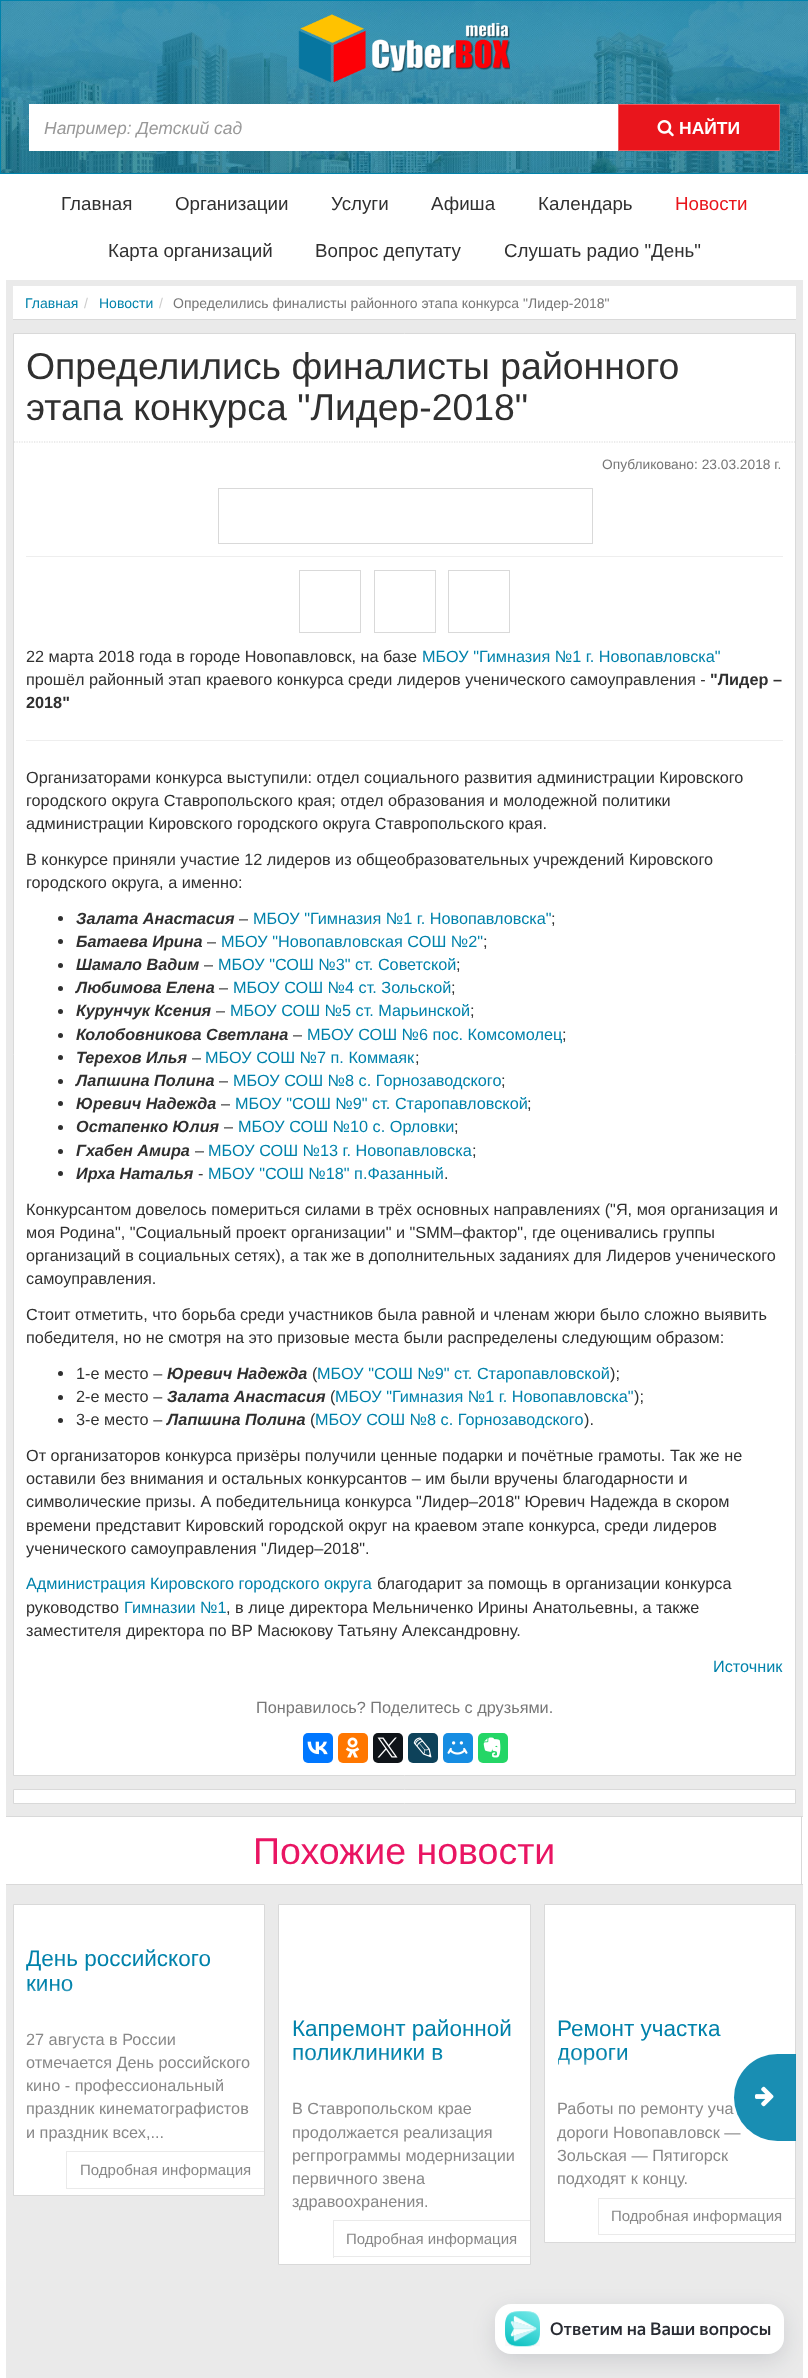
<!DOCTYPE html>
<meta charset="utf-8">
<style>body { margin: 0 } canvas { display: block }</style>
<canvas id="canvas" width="808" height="2378"></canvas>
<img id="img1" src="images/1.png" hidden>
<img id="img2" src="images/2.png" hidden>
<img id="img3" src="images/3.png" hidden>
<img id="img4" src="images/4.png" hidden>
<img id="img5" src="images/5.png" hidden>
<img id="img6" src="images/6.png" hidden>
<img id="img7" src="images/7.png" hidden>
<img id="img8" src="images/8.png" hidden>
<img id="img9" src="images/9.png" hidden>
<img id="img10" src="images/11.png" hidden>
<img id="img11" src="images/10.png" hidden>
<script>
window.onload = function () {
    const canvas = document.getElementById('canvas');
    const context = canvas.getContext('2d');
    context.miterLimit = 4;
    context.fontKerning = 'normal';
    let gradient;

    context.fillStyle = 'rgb(255, 255, 255)';
    context.fillRect(0, 0, 808, 2378);
    context.drawImage(document.getElementById('img1'), 1, 1, 807, 172);
    context.strokeStyle = 'rgb(0, 130, 171)';
    context.strokeRect(0.5, 0.5, 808, 173);
    context.drawImage(document.getElementById('img2'), 298, 14, 212, 69);
    context.fillRect(29, 104, 589, 47);
    context.fillStyle = 'rgb(233, 21, 28)';
    context.beginPath();
    context.rect(618.5, 104.5, 161, 46);
    context.fill();
    context.strokeStyle = 'rgb(240, 90, 95)';
    context.stroke();
    context.drawImage(document.getElementById('img3'), 657, 120, 17, 17);
    context.fillStyle = 'rgb(234, 234, 234)';
    context.fillRect(6, 280, 797, 2098);
    context.fillStyle = 'rgb(255, 255, 255)';
    context.fillRect(13, 286, 783, 33);
    context.fillStyle = 'rgb(217, 217, 217)';
    context.fillRect(13, 319, 783, 1);
    context.fillStyle = 'rgb(255, 255, 255)';
    context.beginPath();
    context.rect(13.5, 333.5, 782, 1442);
    context.fill();
    context.strokeStyle = 'rgb(217, 217, 217)';
    context.stroke();
    context.beginPath();
    context.moveTo(14, 442);
    context.lineTo(795, 442);
    context.lineWidth = 1.2;
    context.setLineDash([1.25, 1.25]);
    context.stroke();
    context.lineWidth = 1;
    context.setLineDash([]);
    context.strokeRect(218.5, 488.5, 374, 55);
    context.fillStyle = 'rgb(238, 238, 238)';
    context.fillRect(26, 556, 757, 1);
    context.strokeRect(299.5, 570.5, 61, 62);
    context.strokeRect(374.5, 570.5, 61, 62);
    context.strokeRect(448.5, 570.5, 61, 62);
    context.fillRect(26, 740, 757, 1);
    context.fillStyle = 'rgb(48, 48, 48)';
    context.beginPath();
    context.arc(60.5, 918.5, 2.5, 0, 2 * Math.PI);
    context.fill();
    context.beginPath();
    context.arc(60.5, 941.5, 2.5, 0, 2 * Math.PI);
    context.fill();
    context.beginPath();
    context.arc(60.5, 965.5, 2.5, 0, 2 * Math.PI);
    context.fill();
    context.beginPath();
    context.arc(60.5, 988.5, 2.5, 0, 2 * Math.PI);
    context.fill();
    context.beginPath();
    context.arc(60.5, 1011.5, 2.5, 0, 2 * Math.PI);
    context.fill();
    context.beginPath();
    context.arc(60.5, 1035.5, 2.5, 0, 2 * Math.PI);
    context.fill();
    context.beginPath();
    context.arc(60.5, 1057.5, 2.5, 0, 2 * Math.PI);
    context.fill();
    context.beginPath();
    context.arc(60.5, 1081.5, 2.5, 0, 2 * Math.PI);
    context.fill();
    context.beginPath();
    context.arc(60.5, 1103.5, 2.5, 0, 2 * Math.PI);
    context.fill();
    context.beginPath();
    context.arc(60.5, 1127.5, 2.5, 0, 2 * Math.PI);
    context.fill();
    context.beginPath();
    context.arc(60.5, 1151.5, 2.5, 0, 2 * Math.PI);
    context.fill();
    context.beginPath();
    context.arc(60.5, 1173.5, 2.5, 0, 2 * Math.PI);
    context.fill();
    context.beginPath();
    context.arc(60.5, 1373.5, 2.5, 0, 2 * Math.PI);
    context.fill();
    context.beginPath();
    context.arc(60.5, 1397.5, 2.5, 0, 2 * Math.PI);
    context.fill();
    context.beginPath();
    context.arc(60.5, 1420.5, 2.5, 0, 2 * Math.PI);
    context.fill();
    context.fillStyle = 'rgb(0, 119, 255)';
    context.beginPath();
    context.roundRect(303, 1733, 30, 30, 5);
    context.fill();
    context.drawImage(document.getElementById('img4'), 307, 1741, 21, 14);
    context.fillStyle = 'rgb(255, 119, 0)';
    context.beginPath();
    context.roundRect(338, 1733, 30, 30, 5);
    context.fill();
    context.drawImage(document.getElementById('img5'), 345, 1737, 15, 21);
    context.fillStyle = 'rgb(15, 20, 25)';
    context.beginPath();
    context.roundRect(373, 1733, 30, 30, 5);
    context.fill();
    context.drawImage(document.getElementById('img6'), 377, 1737, 21, 21);
    context.fillStyle = 'rgb(13, 66, 90)';
    context.beginPath();
    context.roundRect(408, 1733, 30, 30, 5);
    context.fill();
    context.drawImage(document.getElementById('img7'), 413, 1737, 19, 21);
    context.fillStyle = 'rgb(22, 141, 226)';
    context.beginPath();
    context.roundRect(443, 1733, 30, 30, 5);
    context.fill();
    context.drawImage(document.getElementById('img8'), 447, 1741, 21, 14);
    context.fillStyle = 'rgb(36, 214, 102)';
    context.beginPath();
    context.roundRect(478, 1733, 30, 30, 5);
    context.fill();
    context.drawImage(document.getElementById('img9'), 483, 1737, 18, 21);
    context.fillStyle = 'rgb(255, 255, 255)';
    context.beginPath();
    context.rect(13.5, 1789.5, 782, 14);
    context.fill();
    context.stroke();
    context.fillRect(6, 1817, 797, 67);
    context.fillStyle = 'rgb(217, 217, 217)';
    context.fillRect(6, 1816, 797, 1);
    context.fillRect(801, 1816, 1, 69);
    context.fillRect(6, 1884, 797, 1);
    context.fillStyle = 'rgb(255, 255, 255)';
    context.beginPath();
    context.rect(13.5, 1904.5, 251, 291);
    context.fill();
    context.stroke();
    context.fillStyle = 'rgb(234, 234, 234)';
    context.fillRect(66, 2151, 198, 1);
    context.fillRect(66, 2188, 198, 1);
    context.fillRect(66, 2151, 1, 38);
    context.fillStyle = 'rgb(255, 255, 255)';
    context.beginPath();
    context.rect(278.5, 1904.5, 252, 360);
    context.fill();
    context.stroke();
    context.fillStyle = 'rgb(234, 234, 234)';
    context.fillRect(333, 2220, 197, 1);
    context.fillRect(333, 2256, 197, 1);
    context.fillRect(333, 2220, 1, 38);
    context.fillStyle = 'rgb(255, 255, 255)';
    context.beginPath();
    context.rect(544.5, 1904.5, 251, 338);
    context.fill();
    context.stroke();
    context.fillStyle = 'rgb(234, 234, 234)';
    context.fillRect(598, 2198, 197, 1);
    context.fillRect(598, 2234, 197, 1);
    context.fillRect(598, 2198, 1, 37);
    context.fillStyle = 'rgba(14, 21, 47, 0.13)';
    context.filter = 'blur(11px)';
    context.beginPath();
    context.roundRect(495, 2311, 289, 50, 16);
    context.fill();
    context.filter = 'none';
    context.fillStyle = 'rgb(255, 255, 255)';
    context.beginPath();
    context.roundRect(495, 2304, 289, 50, 16);
    context.fill();
    context.drawImage(document.getElementById('img10'), 505, 2311, 35, 36);
    context.font = 'italic 17.5px Liberation Sans';
    context.fillStyle = 'rgb(153, 153, 153)';
    context.fillText('Например: Детский сад', 44, 134);
    context.font = 'bold 17.5px Liberation Sans';
    context.fillStyle = 'rgb(255, 255, 255)';
    context.fillText('НАЙТИ', 679, 134);
    context.font = '18.75px Liberation Sans';
    context.fillStyle = 'rgb(48, 48, 48)';
    context.fillText('Главная', 61, 210);
    context.fillText('Организации', 175, 210);
    context.fillText('Услуги', 331, 210);
    context.fillText('Афиша', 431, 210);
    context.fillText('Календарь', 538, 210);
    context.fillStyle = 'rgb(233, 21, 28)';
    context.fillText('Новости', 675, 210);
    context.fillStyle = 'rgb(48, 48, 48)';
    context.fillText('Карта организаций', 108, 257);
    context.fillText('Вопрос депутату', 315, 257);
    context.fillText('Слушать радио "День"', 504, 257);
    context.font = '14px Liberation Sans';
    context.fillStyle = 'rgb(0, 130, 171)';
    context.fillText('Главная', 25, 308);
    context.fillStyle = 'rgb(204, 204, 204)';
    context.fillText('/', 84, 308);
    context.fillStyle = 'rgb(0, 130, 171)';
    context.fillText('Новости', 99, 308);
    context.fillStyle = 'rgb(204, 204, 204)';
    context.fillText('/', 159, 308);
    context.fillStyle = 'rgb(119, 119, 119)';
    context.fillText('Определились финалисты районного этапа конкурса "Лидер-2018"', 173, 308);
    context.font = '37.4px Liberation Sans';
    context.fillStyle = 'rgb(48, 48, 48)';
    context.fillText('Определились финалисты районного', 26, 379);
    context.fillText('этапа конкурса "Лидер-2018"', 26, 420);
    context.font = '13.75px Liberation Sans';
    context.fillStyle = 'rgb(119, 119, 119)';
    context.fillText('Опубликовано: 23.03.2018 г.', 602, 469);
    context.font = '16.25px Liberation Sans';
    context.fillStyle = 'rgb(48, 48, 48)';
    context.fillText('22 марта 2018 года в городе Новопавловск, на базе', 26, 662);
    context.fillStyle = 'rgb(0, 130, 171)';
    context.fillText('МБОУ "Гимназия №1 г. Новопавловска"', 422, 662);
    context.fillStyle = 'rgb(48, 48, 48)';
    context.fillText('прошёл районный этап краевого конкурса среди лидеров ученического самоуправления -', 26, 685);
    context.font = 'bold 16.25px Liberation Sans';
    context.fillText('"Лидер –', 710, 685);
    context.fillText('2018"', 26, 708);
    context.font = '16.25px Liberation Sans';
    context.fillText('Организаторами конкурса выступили: отдел социального развития администрации Кировского', 26, 783);
    context.fillText('городского округа Ставропольского края; отдел образования и молодежной политики', 26, 806);
    context.fillText('администрации Кировского городского округа Ставропольского края.', 26, 829);
    context.fillText('В конкурсе приняли участие 12 лидеров из общеобразовательных учреждений Кировского', 26, 865);
    context.fillText('городского округа, а именно:', 26, 888);
    context.font = 'italic bold 16.25px Liberation Sans';
    context.fillText('Залата Анастасия', 76, 924);
    context.font = '16.25px Liberation Sans';
    context.fillText('–', 239, 924);
    context.fillStyle = 'rgb(0, 130, 171)';
    context.fillText('МБОУ "Гимназия №1 г. Новопавловска"', 253, 924);
    context.fillStyle = 'rgb(48, 48, 48)';
    context.fillText(';', 551, 924);
    context.font = 'italic bold 16.25px Liberation Sans';
    context.fillText('Батаева Ирина', 76, 947);
    context.font = '16.25px Liberation Sans';
    context.fillText('–', 207, 947);
    context.fillStyle = 'rgb(0, 130, 171)';
    context.fillText('МБОУ "Новопавловская СОШ №2"', 221, 947);
    context.fillStyle = 'rgb(48, 48, 48)';
    context.fillText(';', 483, 947);
    context.font = 'italic bold 16.25px Liberation Sans';
    context.fillText('Шамало Вадим', 76, 970);
    context.font = '16.25px Liberation Sans';
    context.fillText('–', 204, 970);
    context.fillStyle = 'rgb(0, 130, 171)';
    context.fillText('МБОУ "СОШ №3" ст. Советской', 218, 970);
    context.fillStyle = 'rgb(48, 48, 48)';
    context.fillText(';', 456, 970);
    context.font = 'italic bold 16.25px Liberation Sans';
    context.fillText('Любимова Елена', 76, 993);
    context.font = '16.25px Liberation Sans';
    context.fillText('–', 219, 993);
    context.fillStyle = 'rgb(0, 130, 171)';
    context.fillText('МБОУ СОШ №4 ст. Зольской', 233, 993);
    context.fillStyle = 'rgb(48, 48, 48)';
    context.fillText(';', 451, 993);
    context.font = 'italic bold 16.25px Liberation Sans';
    context.fillText('Курунчук Ксения', 76, 1016);
    context.font = '16.25px Liberation Sans';
    context.fillText('–', 216, 1016);
    context.fillStyle = 'rgb(0, 130, 171)';
    context.fillText('МБОУ СОШ №5 ст. Марьинской', 230, 1016);
    context.fillStyle = 'rgb(48, 48, 48)';
    context.fillText(';', 470, 1016);
    context.font = 'italic bold 16.25px Liberation Sans';
    context.fillText('Колобовникова Светлана', 76, 1040);
    context.font = '16.25px Liberation Sans';
    context.fillText('–', 293, 1040);
    context.fillStyle = 'rgb(0, 130, 171)';
    context.fillText('МБОУ СОШ №6 пос. Комсомолец', 307, 1040);
    context.fillStyle = 'rgb(48, 48, 48)';
    context.fillText(';', 562, 1040);
    context.font = 'italic bold 16.25px Liberation Sans';
    context.fillText('Терехов Илья', 76, 1063);
    context.font = '16.25px Liberation Sans';
    context.fillText('–', 192, 1063);
    context.fillStyle = 'rgb(0, 130, 171)';
    context.fillText('МБОУ СОШ №7 п. Коммаяк', 205, 1063);
    context.fillStyle = 'rgb(48, 48, 48)';
    context.fillText(';', 415, 1063);
    context.font = 'italic bold 16.25px Liberation Sans';
    context.fillText('Лапшина Полина', 76, 1086);
    context.font = '16.25px Liberation Sans';
    context.fillText('–', 219, 1086);
    context.fillStyle = 'rgb(0, 130, 171)';
    context.fillText('МБОУ СОШ №8 с. Горнозаводского', 233, 1086);
    context.fillStyle = 'rgb(48, 48, 48)';
    context.fillText(';', 501, 1086);
    context.font = 'italic bold 16.25px Liberation Sans';
    context.fillText('Юревич Надежда', 76, 1109);
    context.font = '16.25px Liberation Sans';
    context.fillText('–', 221, 1109);
    context.fillStyle = 'rgb(0, 130, 171)';
    context.fillText('МБОУ "СОШ №9" ст. Старопавловской', 235, 1109);
    context.fillStyle = 'rgb(48, 48, 48)';
    context.fillText(';', 527, 1109);
    context.font = 'italic bold 16.25px Liberation Sans';
    context.fillText('Остапенко Юлия', 76, 1132);
    context.font = '16.25px Liberation Sans';
    context.fillText('–', 224, 1132);
    context.fillStyle = 'rgb(0, 130, 171)';
    context.fillText('МБОУ СОШ №10 с. Орловки', 238, 1132);
    context.fillStyle = 'rgb(48, 48, 48)';
    context.fillText(';', 454, 1132);
    context.font = 'italic bold 16.25px Liberation Sans';
    context.fillText('Гхабен Амира', 76, 1156);
    context.font = '16.25px Liberation Sans';
    context.fillText('–', 195, 1156);
    context.fillStyle = 'rgb(0, 130, 171)';
    context.fillText('МБОУ СОШ №13 г. Новопавловска', 208, 1156);
    context.fillStyle = 'rgb(48, 48, 48)';
    context.fillText(';', 472, 1156);
    context.font = 'italic bold 16.25px Liberation Sans';
    context.fillText('Ирха Наталья', 76, 1179);
    context.font = '16.25px Liberation Sans';
    context.fillText('-', 198, 1179);
    context.fillStyle = 'rgb(0, 130, 171)';
    context.fillText('МБОУ "СОШ №18" п.Фазанный', 208, 1179);
    context.fillStyle = 'rgb(48, 48, 48)';
    context.fillText('.', 444, 1179);
    context.fillText('Конкурсантом довелось помериться силами в трёх основных направлениях ("Я, моя организация и', 26, 1215);
    context.fillText('моя Родина", "Социальный проект организации" и "SMM–фактор", где оценивались группы', 26, 1238);
    context.fillText('организаций в социальных сетях), а так же в дополнительных заданиях для Лидеров ученического', 26, 1261);
    context.fillText('самоуправления.', 26, 1284);
    context.fillText('Стоит отметить, что борьба среди участников была равной и членам жюри было сложно выявить', 26, 1320);
    context.fillText('победителя, но не смотря на это призовые места были распределены следующим образом:', 26, 1343);
    context.fillText('1-е место –', 76, 1379);
    context.font = 'italic bold 16.25px Liberation Sans';
    context.fillText('Юревич Надежда', 167, 1379);
    context.font = '16.25px Liberation Sans';
    context.fillText('(', 312, 1379);
    context.fillStyle = 'rgb(0, 130, 171)';
    context.fillText('МБОУ "СОШ №9" ст. Старопавловской', 317, 1379);
    context.fillStyle = 'rgb(48, 48, 48)';
    context.fillText(');', 610, 1379);
    context.fillText('2-е место –', 76, 1402);
    context.font = 'italic bold 16.25px Liberation Sans';
    context.fillText('Залата Анастасия', 167, 1402);
    context.font = '16.25px Liberation Sans';
    context.fillText('(', 330, 1402);
    context.fillStyle = 'rgb(0, 130, 171)';
    context.fillText('МБОУ "Гимназия №1 г. Новопавловска"', 335, 1402);
    context.fillStyle = 'rgb(48, 48, 48)';
    context.fillText(');', 634, 1402);
    context.fillText('3-е место –', 76, 1425);
    context.font = 'italic bold 16.25px Liberation Sans';
    context.fillText('Лапшина Полина', 167, 1425);
    context.font = '16.25px Liberation Sans';
    context.fillText('(', 310, 1425);
    context.fillStyle = 'rgb(0, 130, 171)';
    context.fillText('МБОУ СОШ №8 с. Горнозаводского', 315, 1425);
    context.fillStyle = 'rgb(48, 48, 48)';
    context.fillText(').', 584, 1425);
    context.fillText('От организаторов конкурса призёры получили ценные подарки и почётные грамоты. Так же не', 26, 1461);
    context.fillText('оставили без внимания и остальных конкурсантов – им были вручены благодарности и', 26, 1484);
    context.fillText('символические призы. А победительница конкурса "Лидер–2018" Юревич Надежда в скором', 26, 1507);
    context.fillText('времени представит Кировский городской округ на краевом этапе конкурса, среди лидеров', 26, 1531);
    context.fillText('ученического самоуправления "Лидер–2018".', 26, 1554);
    context.fillStyle = 'rgb(0, 130, 171)';
    context.fillText('Администрация Кировского городского округа', 26, 1589);
    context.fillStyle = 'rgb(48, 48, 48)';
    context.fillText('благодарит за помощь в организации конкурса', 377, 1589);
    context.fillText('руководство', 26, 1613);
    context.fillStyle = 'rgb(0, 130, 171)';
    context.fillText('Гимназии №1', 124, 1613);
    context.fillStyle = 'rgb(48, 48, 48)';
    context.fillText(', в лице директора Мельниченко Ирины Анатольевны, а также', 226, 1613);
    context.fillText('заместителя директора по ВР Масюкову Татьяну Александровну.', 26, 1636);
    context.fillStyle = 'rgb(0, 130, 171)';
    context.fillText('Источник', 713, 1672);
    context.fillStyle = 'rgb(119, 119, 119)';
    context.fillText('Понравилось? Поделитесь с друзьями.', 256, 1713);
    context.font = '37.5px Liberation Sans';
    context.fillStyle = 'rgb(233, 21, 99)';
    context.fillText('Похожие новости', 253, 1864);
    context.font = '22.5px Liberation Sans';
    context.fillStyle = 'rgb(0, 130, 171)';
    context.fillText('День российского', 26, 1966);
    context.fillText('кино', 26, 1991);
    gradient = context.createLinearGradient(139, 1985, 139, 2023);
    gradient.addColorStop(0, 'rgba(255, 255, 255, 0)');
    gradient.addColorStop(0.75, 'rgb(255, 255, 255)');
    context.fillStyle = gradient;
    context.fillRect(27, 1986, 46, 6);
    context.font = '16.25px Liberation Sans';
    context.fillStyle = 'rgb(136, 136, 136)';
    context.fillText('27 августа в России', 26, 2045);
    context.fillText('отмечается День российского', 26, 2068);
    context.fillText('кино - профессиональный', 26, 2091);
    context.fillText('праздник кинематографистов', 26, 2114);
    context.fillText('и праздник всех,...', 26, 2138);
    context.font = '15px Liberation Sans';
    context.fillText('Подробная информация', 80, 2175);
    context.font = '22.5px Liberation Sans';
    context.fillStyle = 'rgb(0, 130, 171)';
    context.fillText('Капремонт районной', 292, 2036);
    context.fillText('поликлиники в', 292, 2060);
    gradient = context.createLinearGradient(404, 2055, 404, 2093);
    gradient.addColorStop(0, 'rgba(255, 255, 255, 0)');
    gradient.addColorStop(0.75, 'rgb(255, 255, 255)');
    context.fillStyle = gradient;
    context.fillRect(293, 2056, 149, 5);
    context.font = '16.25px Liberation Sans';
    context.fillStyle = 'rgb(136, 136, 136)';
    context.fillText('В Ставропольском крае', 292, 2114);
    context.fillText('продолжается реализация', 292, 2138);
    context.fillText('регпрограммы модернизации', 292, 2161);
    context.fillText('первичного звена', 292, 2184);
    context.fillText('здравоохранения.', 292, 2207);
    context.font = '15px Liberation Sans';
    context.fillText('Подробная информация', 346, 2244);
    context.font = '22.5px Liberation Sans';
    context.fillStyle = 'rgb(0, 130, 171)';
    context.fillText('Ремонт участка', 557, 2036);
    context.save();
    context.beginPath();
    context.rect(558, 2018, 225, 75);
    context.clip();
    context.fillText('дороги', 557, 2060);
    context.restore();
    gradient = context.createLinearGradient(670, 2055, 670, 2093);
    gradient.addColorStop(0, 'rgba(255, 255, 255, 0)');
    gradient.addColorStop(0.75, 'rgb(255, 255, 255)');
    context.fillStyle = gradient;
    context.fillRect(558, 2056, 69, 9);
    context.font = '16.25px Liberation Sans';
    context.fillStyle = 'rgb(136, 136, 136)';
    context.fillText('Работы по ремонту уча', 557, 2114);
    context.fillText('дороги Новопавловск —', 557, 2138);
    context.fillText('Зольская — Пятигорск', 557, 2161);
    context.fillText('подходят к концу.', 557, 2184);
    context.font = '15px Liberation Sans';
    context.fillText('Подробная информация', 611, 2221);
    context.fillStyle = 'rgba(0, 130, 171, 0.9)';
    context.beginPath();
    context.roundRect(734, 2054, 62, 87, [43.5, 0, 0, 43.5]);
    context.fill();
    context.drawImage(document.getElementById('img11'), 755, 2086, 19, 21);
    context.font = '500 17.5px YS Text';
    context.fillStyle = 'rgb(41, 44, 51)';
    context.fillText('Ответим на Ваши вопросы', 550, 2335);
};
</script>
